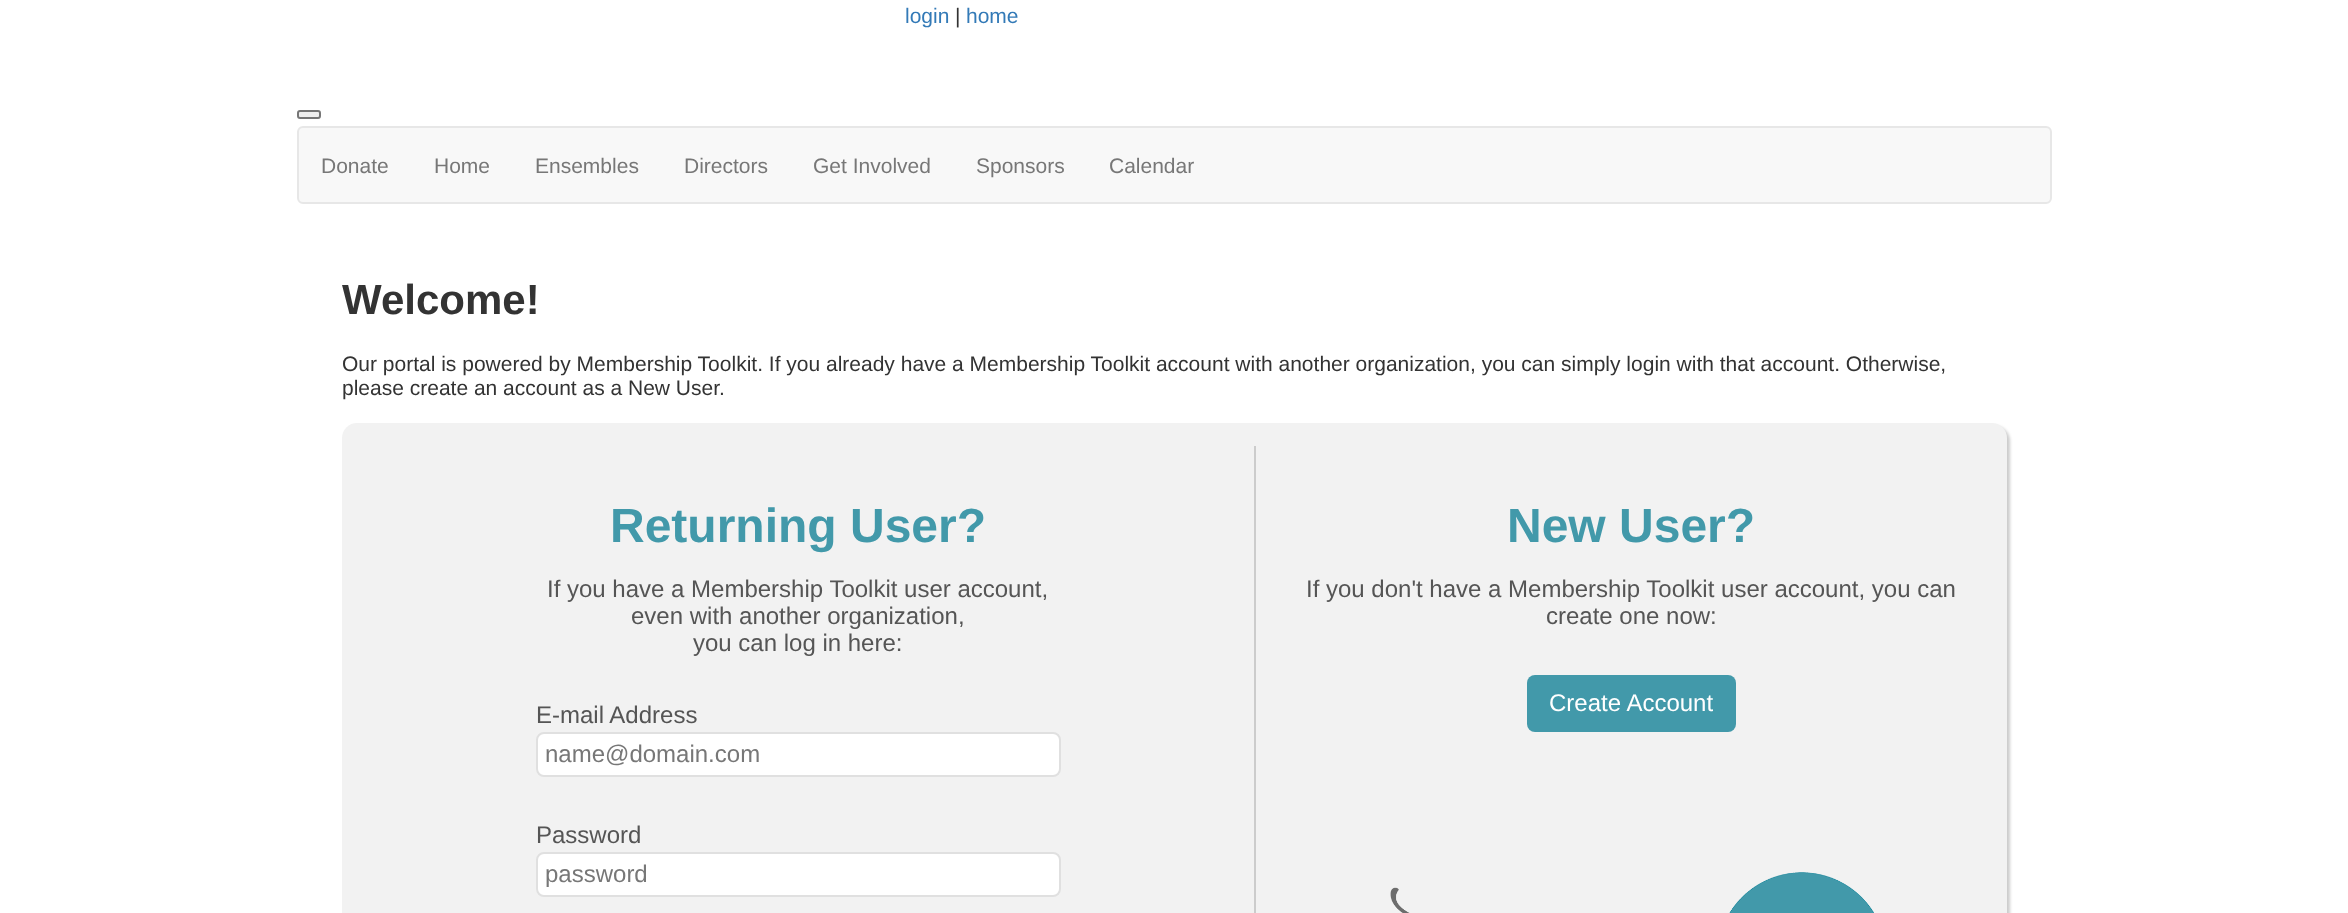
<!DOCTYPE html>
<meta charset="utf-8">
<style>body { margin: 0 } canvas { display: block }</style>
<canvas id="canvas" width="2348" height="913"></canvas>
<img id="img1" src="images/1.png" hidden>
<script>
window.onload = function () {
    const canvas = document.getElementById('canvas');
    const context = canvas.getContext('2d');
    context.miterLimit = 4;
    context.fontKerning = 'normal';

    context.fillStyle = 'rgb(255, 255, 255)';
    context.fillRect(0, 0, 2348, 913);
    context.fillStyle = 'rgb(239, 239, 239)';
    context.beginPath();
    context.roundRect(298, 111, 22, 7, 2);
    context.fill();
    context.strokeStyle = 'rgb(118, 118, 118)';
    context.lineWidth = 2;
    context.stroke();
    context.fillStyle = 'rgb(248, 248, 248)';
    context.beginPath();
    context.roundRect(298, 127, 1753, 76, 5);
    context.fill();
    context.strokeStyle = 'rgb(231, 231, 231)';
    context.stroke();
    context.fillStyle = 'rgba(0, 0, 0, 0.2)';
    context.filter = 'blur(1.5px)';
    context.beginPath();
    context.roundRect(345, 426, 1665, 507, 15);
    context.fill();
    context.filter = 'none';
    context.fillStyle = 'rgb(242, 242, 242)';
    context.beginPath();
    context.roundRect(342, 423, 1665, 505, 15);
    context.fill();
    context.fillStyle = 'rgb(204, 204, 204)';
    context.fillRect(1254, 446, 2, 467);
    context.fillStyle = 'rgb(255, 255, 255)';
    context.beginPath();
    context.roundRect(537, 733, 523, 43, 7);
    context.fill();
    context.strokeStyle = 'rgb(224, 224, 224)';
    context.stroke();
    context.beginPath();
    context.roundRect(537, 853, 523, 43, 7);
    context.fill();
    context.stroke();
    context.fillStyle = 'rgb(66, 153, 170)';
    context.beginPath();
    context.roundRect(1527, 675, 209, 57, 8);
    context.fill();
    context.drawImage(document.getElementById('img1'), 1390, 872, 484, 41);
    context.font = '21px Liberation Sans';
    context.fillStyle = 'rgb(51, 122, 183)';
    context.fillText('login', 905, 23);
    context.fillStyle = 'rgb(51, 51, 51)';
    context.fillText('|', 955, 23);
    context.fillStyle = 'rgb(51, 122, 183)';
    context.fillText('home', 966, 23);
    context.fillStyle = 'rgb(119, 119, 119)';
    context.fillText('Donate', 321, 173);
    context.fillText('Home', 434, 173);
    context.fillText('Ensembles', 535, 173);
    context.fillText('Directors', 684, 173);
    context.fillText('Get Involved', 813, 173);
    context.fillText('Sponsors', 976, 173);
    context.fillText('Calendar', 1109, 173);
    context.font = 'bold 42px Liberation Sans';
    context.fillStyle = 'rgb(51, 51, 51)';
    context.fillText('Welcome!', 342, 314);
    context.font = '21px Liberation Sans';
    context.fillText('Our portal is powered by Membership Toolkit. If you already have a Membership Toolkit account with another organization, you can simply login with that account. Otherwise,', 342, 371);
    context.fillText('please create an account as a New User.', 342, 395);
    context.font = 'bold 48px Liberation Sans';
    context.fillStyle = 'rgb(66, 153, 170)';
    context.fillText('Returning User?', 610, 542);
    context.font = '24px Liberation Sans';
    context.fillStyle = 'rgb(85, 85, 85)';
    context.fillText('If you have a Membership Toolkit user account,', 547, 597);
    context.fillText('even with another organization,', 631, 624);
    context.fillText('you can log in here:', 693, 651);
    context.fillText('E-mail Address', 536, 723);
    context.fillStyle = 'rgb(119, 119, 119)';
    context.fillText('name@domain.com', 545, 762);
    context.fillStyle = 'rgb(85, 85, 85)';
    context.fillText('Password', 536, 843);
    context.fillStyle = 'rgb(119, 119, 119)';
    context.fillText('password', 545, 882);
    context.font = 'bold 48px Liberation Sans';
    context.fillStyle = 'rgb(66, 153, 170)';
    context.fillText('New User?', 1507, 542);
    context.font = '24px Liberation Sans';
    context.fillStyle = 'rgb(85, 85, 85)';
    context.fillText('If you don\'t have a Membership Toolkit user account, you can', 1306, 597);
    context.fillText('create one now:', 1546, 624);
    context.fillStyle = 'rgb(255, 255, 255)';
    context.fillText('Create Account', 1549, 711);
};
</script>
